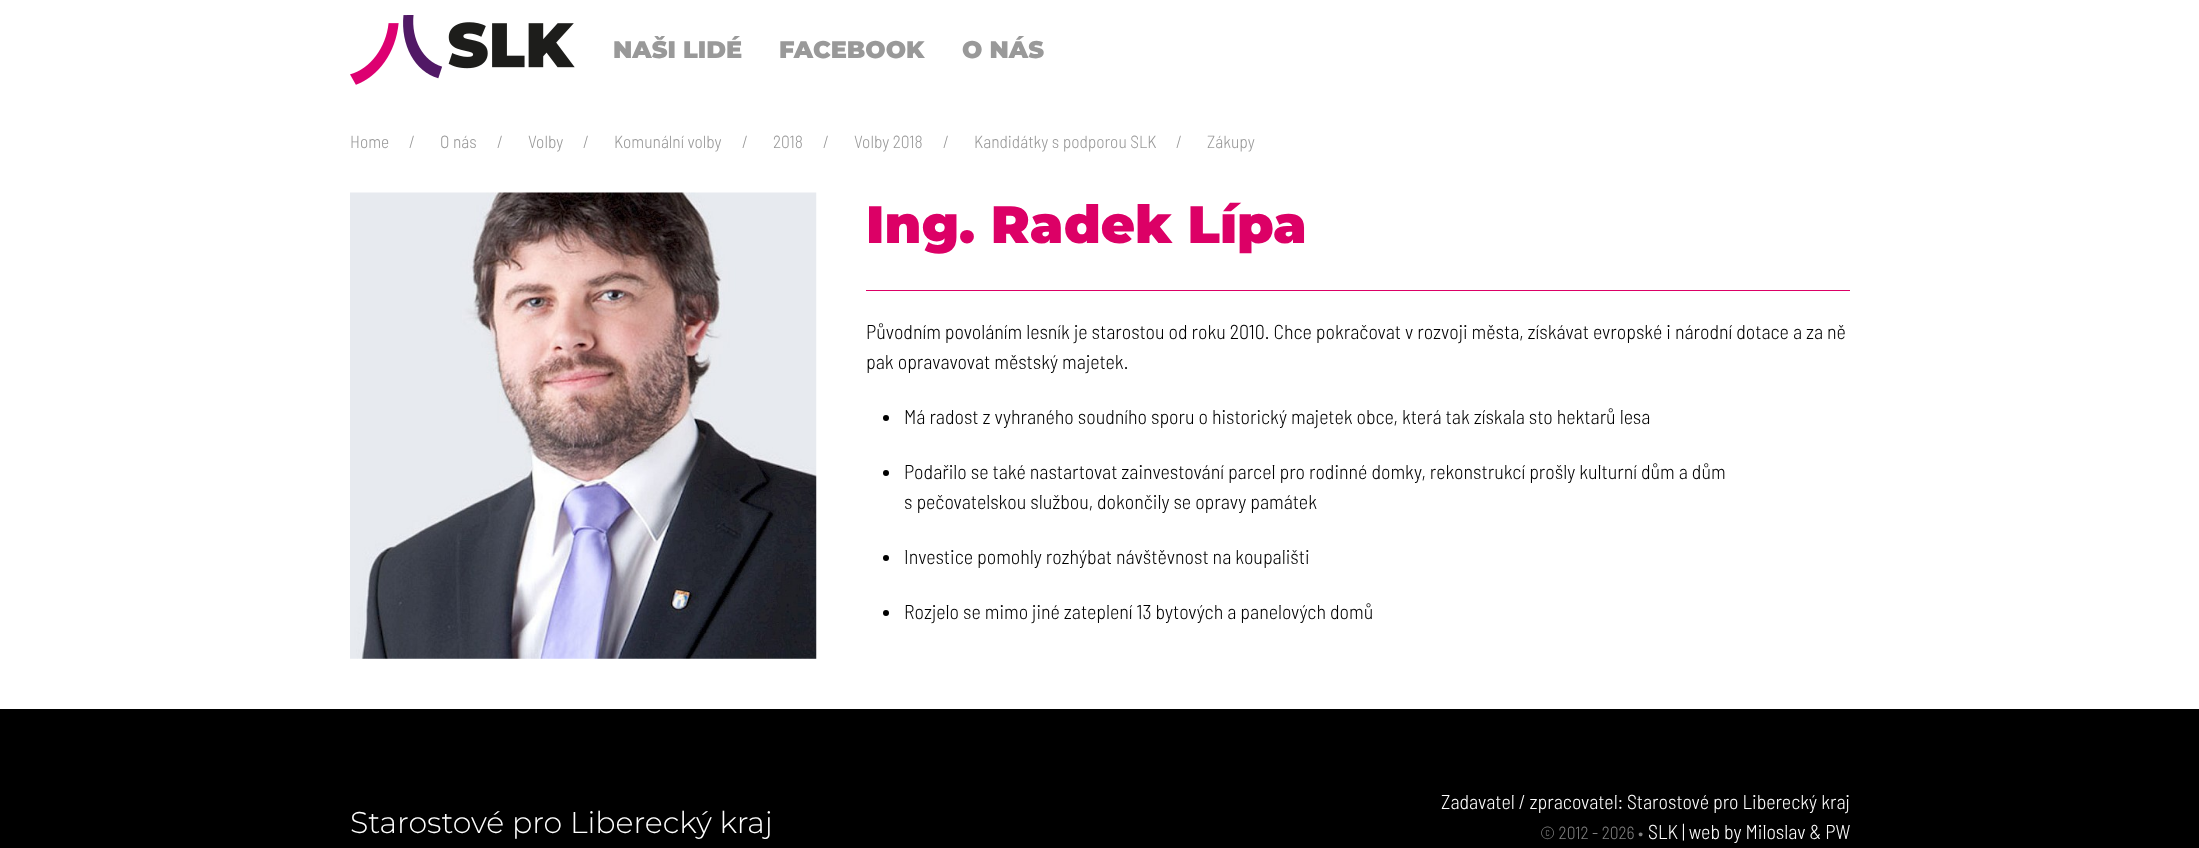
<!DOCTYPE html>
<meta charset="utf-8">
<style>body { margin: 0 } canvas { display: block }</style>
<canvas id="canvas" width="2199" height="848"></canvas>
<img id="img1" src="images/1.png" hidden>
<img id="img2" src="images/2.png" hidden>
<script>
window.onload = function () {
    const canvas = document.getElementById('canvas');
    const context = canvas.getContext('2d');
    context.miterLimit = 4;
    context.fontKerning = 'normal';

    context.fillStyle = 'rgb(255, 255, 255)';
    context.fillRect(0, 0, 2199, 848);
    context.drawImage(document.getElementById('img1'), 350, 15, 225, 70);
    context.drawImage(document.getElementById('img2'), 350, 192, 467, 467);
    context.fillStyle = 'rgb(220, 0, 102)';
    context.fillRect(866, 290, 984, 1);
    context.fillStyle = 'rgb(0, 0, 0)';
    context.beginPath();
    context.arc(886, 418, 3, 0, 2 * Math.PI);
    context.fill();
    context.beginPath();
    context.arc(886, 473, 3, 0, 2 * Math.PI);
    context.fill();
    context.beginPath();
    context.arc(886, 558, 3, 0, 2 * Math.PI);
    context.fill();
    context.beginPath();
    context.arc(886, 613, 3, 0, 2 * Math.PI);
    context.fill();
    context.fillRect(0, 709, 2199, 139);
    context.font = '100 24px Montserrat';
    context.fillStyle = 'rgb(153, 153, 153)';
    context.fillText('NAŠI LIDÉ', 613, 58);
    context.fillText('FACEBOOK', 779, 58);
    context.fillText('O NÁS', 962, 58);
    context.font = '300 17.5px Barlow Semi Condensed';
    context.fillText('Home', 350, 148);
    context.fillText('/', 409, 148);
    context.fillText('O nás', 440, 148);
    context.fillText('/', 497, 148);
    context.fillText('Volby', 528, 148);
    context.fillText('/', 583, 148);
    context.fillText('Komunální volby', 614, 148);
    context.fillText('/', 742, 148);
    context.fillText('2018', 773, 148);
    context.fillText('/', 823, 148);
    context.fillText('Volby 2018', 854, 148);
    context.fillText('/', 943, 148);
    context.fillText('Kandidátky s podporou SLK', 974, 148);
    context.fillText('/', 1176, 148);
    context.fillText('Zákupy', 1207, 148);
    context.font = '100 52.5px Montserrat';
    context.fillStyle = 'rgb(220, 0, 102)';
    context.fillText('Ing. Radek Lípa', 866, 243);
    context.font = '300 20px Barlow Semi Condensed';
    context.fillStyle = 'rgb(0, 0, 0)';
    context.fillText('Původním povoláním lesník je starostou od roku 2010. Chce pokračovat v rozvoji města, získávat evropské i národní dotace a za ně', 866, 339);
    context.fillText('pak opravavovat městský majetek.', 866, 369);
    context.fillText('Má radost z vyhraného soudního sporu o historický majetek obce, která tak získala sto hektarů lesa', 904, 424);
    context.fillText('Podařilo se také nastartovat zainvestování parcel pro rodinné domky, rekonstrukcí prošly kulturní dům a dům', 904, 479);
    context.fillText('s pečovatelskou službou, dokončily se opravy památek', 904, 509);
    context.fillText('Investice pomohly rozhýbat návštěvnost na koupališti', 904, 564);
    context.fillText('Rozjelo se mimo jiné zateplení 13 bytových a panelových domů', 904, 619);
    context.font = '100 30px "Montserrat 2"';
    context.fillStyle = 'rgb(255, 255, 255)';
    context.fillText('Starostové pro Liberecký kraj', 350, 833);
    context.font = '300 20px Barlow Semi Condensed';
    context.fillText('Zadavatel / zpracovatel: Starostové pro Liberecký kraj', 1441, 809);
    context.font = '300 17.5px Barlow Semi Condensed';
    context.fillStyle = 'rgb(128, 128, 128)';
    context.fillText('© 2012 - 2026 •', 1540, 839);
    context.font = '300 20px Barlow Semi Condensed';
    context.fillStyle = 'rgb(255, 255, 255)';
    context.fillText('SLK | web by Miloslav & PW', 1648, 839);
};
</script>
